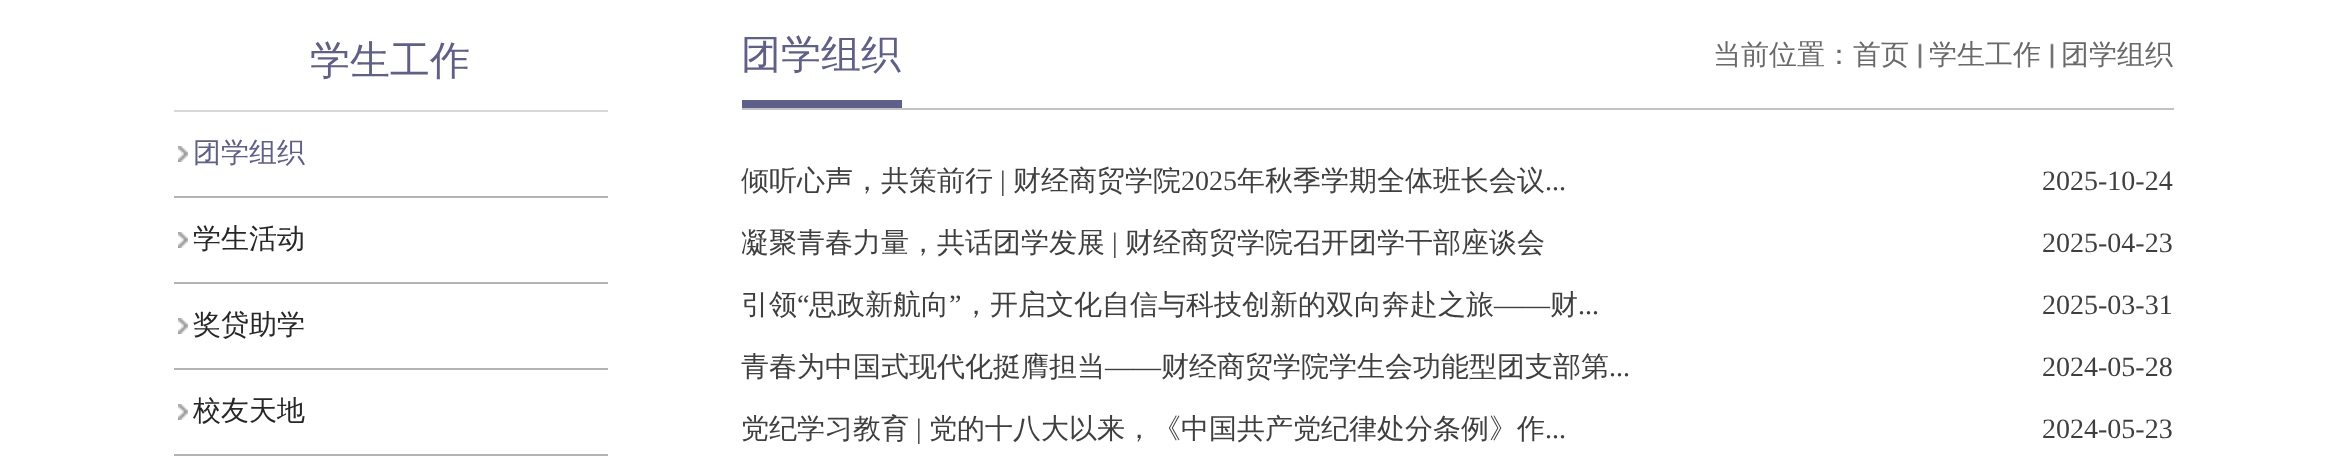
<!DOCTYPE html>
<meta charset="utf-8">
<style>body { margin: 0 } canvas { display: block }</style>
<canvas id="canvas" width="2346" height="476"></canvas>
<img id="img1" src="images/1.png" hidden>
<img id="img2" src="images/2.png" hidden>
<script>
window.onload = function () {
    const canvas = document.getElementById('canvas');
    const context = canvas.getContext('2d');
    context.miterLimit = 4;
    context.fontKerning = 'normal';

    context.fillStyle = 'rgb(255, 255, 255)';
    context.fillRect(0, 0, 2346, 476);
    context.fillStyle = 'rgb(216, 216, 216)';
    context.fillRect(174, 110, 434, 2);
    context.drawImage(document.getElementById('img1'), 178, 146, 10, 16);
    context.fillStyle = 'rgb(179, 179, 179)';
    context.fillRect(174, 196, 434, 2);
    context.drawImage(document.getElementById('img1'), 178, 232, 10, 16);
    context.fillRect(174, 282, 434, 2);
    context.drawImage(document.getElementById('img1'), 178, 318, 10, 16);
    context.fillRect(174, 368, 434, 2);
    context.drawImage(document.getElementById('img1'), 178, 404, 10, 16);
    context.fillRect(174, 454, 434, 2);
    context.fillStyle = 'rgb(195, 195, 195)';
    context.fillRect(742, 108, 1432, 2);
    context.fillStyle = 'rgb(94, 95, 139)';
    context.fillRect(742, 100, 160, 8);
    context.drawImage(document.getElementById('img2'), 1918, 43, 4, 26);
    context.drawImage(document.getElementById('img2'), 2050, 43, 4, 26);
    context.font = '500 40px WenQuanYi Zen Hei';
    context.fillText('学生工作', 310, 74);
    context.font = '500 28px WenQuanYi Zen Hei';
    context.fillText('团学组织', 193, 162);
    context.fillStyle = 'rgb(39, 39, 39)';
    context.fillText('学生活动', 193, 248);
    context.fillText('奖贷助学', 193, 334);
    context.fillText('校友天地', 193, 420);
    context.font = '500 40px WenQuanYi Zen Hei';
    context.fillStyle = 'rgb(94, 95, 139)';
    context.fillText('团学组织', 741, 68);
    context.font = '500 28px WenQuanYi Zen Hei';
    context.fillStyle = 'rgb(105, 105, 105)';
    context.fillText('当前位置：首页', 1713, 64);
    context.fillText('学生工作', 1929, 64);
    context.fillText('团学组织', 2061, 64);
    context.fillStyle = 'rgb(63, 63, 63)';
    context.fillText('倾听心声，共策前行', 741, 190);
    context.font = '28px Liberation Serif';
    context.fillText('|', 1000, 190);
    context.font = '500 28px WenQuanYi Zen Hei';
    context.fillText('财经商贸学院', 1013, 190);
    context.font = '28px Liberation Serif';
    context.fillText('2025', 1181, 190);
    context.font = '500 28px WenQuanYi Zen Hei';
    context.fillText('年秋季学期全体班长会议', 1237, 190);
    context.font = '28px Liberation Serif';
    context.fillText('...', 1545, 190);
    context.fillText('2025-10-24', 2042, 190);
    context.font = '500 28px WenQuanYi Zen Hei';
    context.fillText('凝聚青春力量，共话团学发展', 741, 252);
    context.font = '28px Liberation Serif';
    context.fillText('|', 1112, 252);
    context.font = '500 28px WenQuanYi Zen Hei';
    context.fillText('财经商贸学院召开团学干部座谈会', 1125, 252);
    context.font = '28px Liberation Serif';
    context.fillText('2025-04-23', 2042, 252);
    context.font = '500 28px WenQuanYi Zen Hei';
    context.fillText('引领', 741, 314);
    context.font = '28px Liberation Serif';
    context.fillText('“', 797, 314);
    context.font = '500 28px WenQuanYi Zen Hei';
    context.fillText('思政新航向', 809, 314);
    context.font = '28px Liberation Serif';
    context.fillText('”', 949, 314);
    context.font = '500 28px WenQuanYi Zen Hei';
    context.fillText('，开启文化自信与科技创新的双向奔赴之旅', 962, 314);
    context.font = '28px Liberation Serif';
    context.fillText('——', 1494, 314);
    context.font = '500 28px WenQuanYi Zen Hei';
    context.fillText('财', 1550, 314);
    context.font = '28px Liberation Serif';
    context.fillText('...', 1578, 314);
    context.fillText('2025-03-31', 2042, 314);
    context.font = '500 28px WenQuanYi Zen Hei';
    context.fillText('青春为中国式现代化挺膺担当', 741, 376);
    context.font = '28px Liberation Serif';
    context.fillText('——', 1105, 376);
    context.font = '500 28px WenQuanYi Zen Hei';
    context.fillText('财经商贸学院学生会功能型团支部第', 1161, 376);
    context.font = '28px Liberation Serif';
    context.fillText('...', 1609, 376);
    context.fillText('2024-05-28', 2042, 376);
    context.font = '500 28px WenQuanYi Zen Hei';
    context.fillText('党纪学习教育', 741, 438);
    context.font = '28px Liberation Serif';
    context.fillText('|', 916, 438);
    context.font = '500 28px WenQuanYi Zen Hei';
    context.fillText('党的十八大以来，《中国共产党纪律处分条例》作', 929, 438);
    context.font = '28px Liberation Serif';
    context.fillText('...', 1545, 438);
    context.fillText('2024-05-23', 2042, 438);
};
</script>
